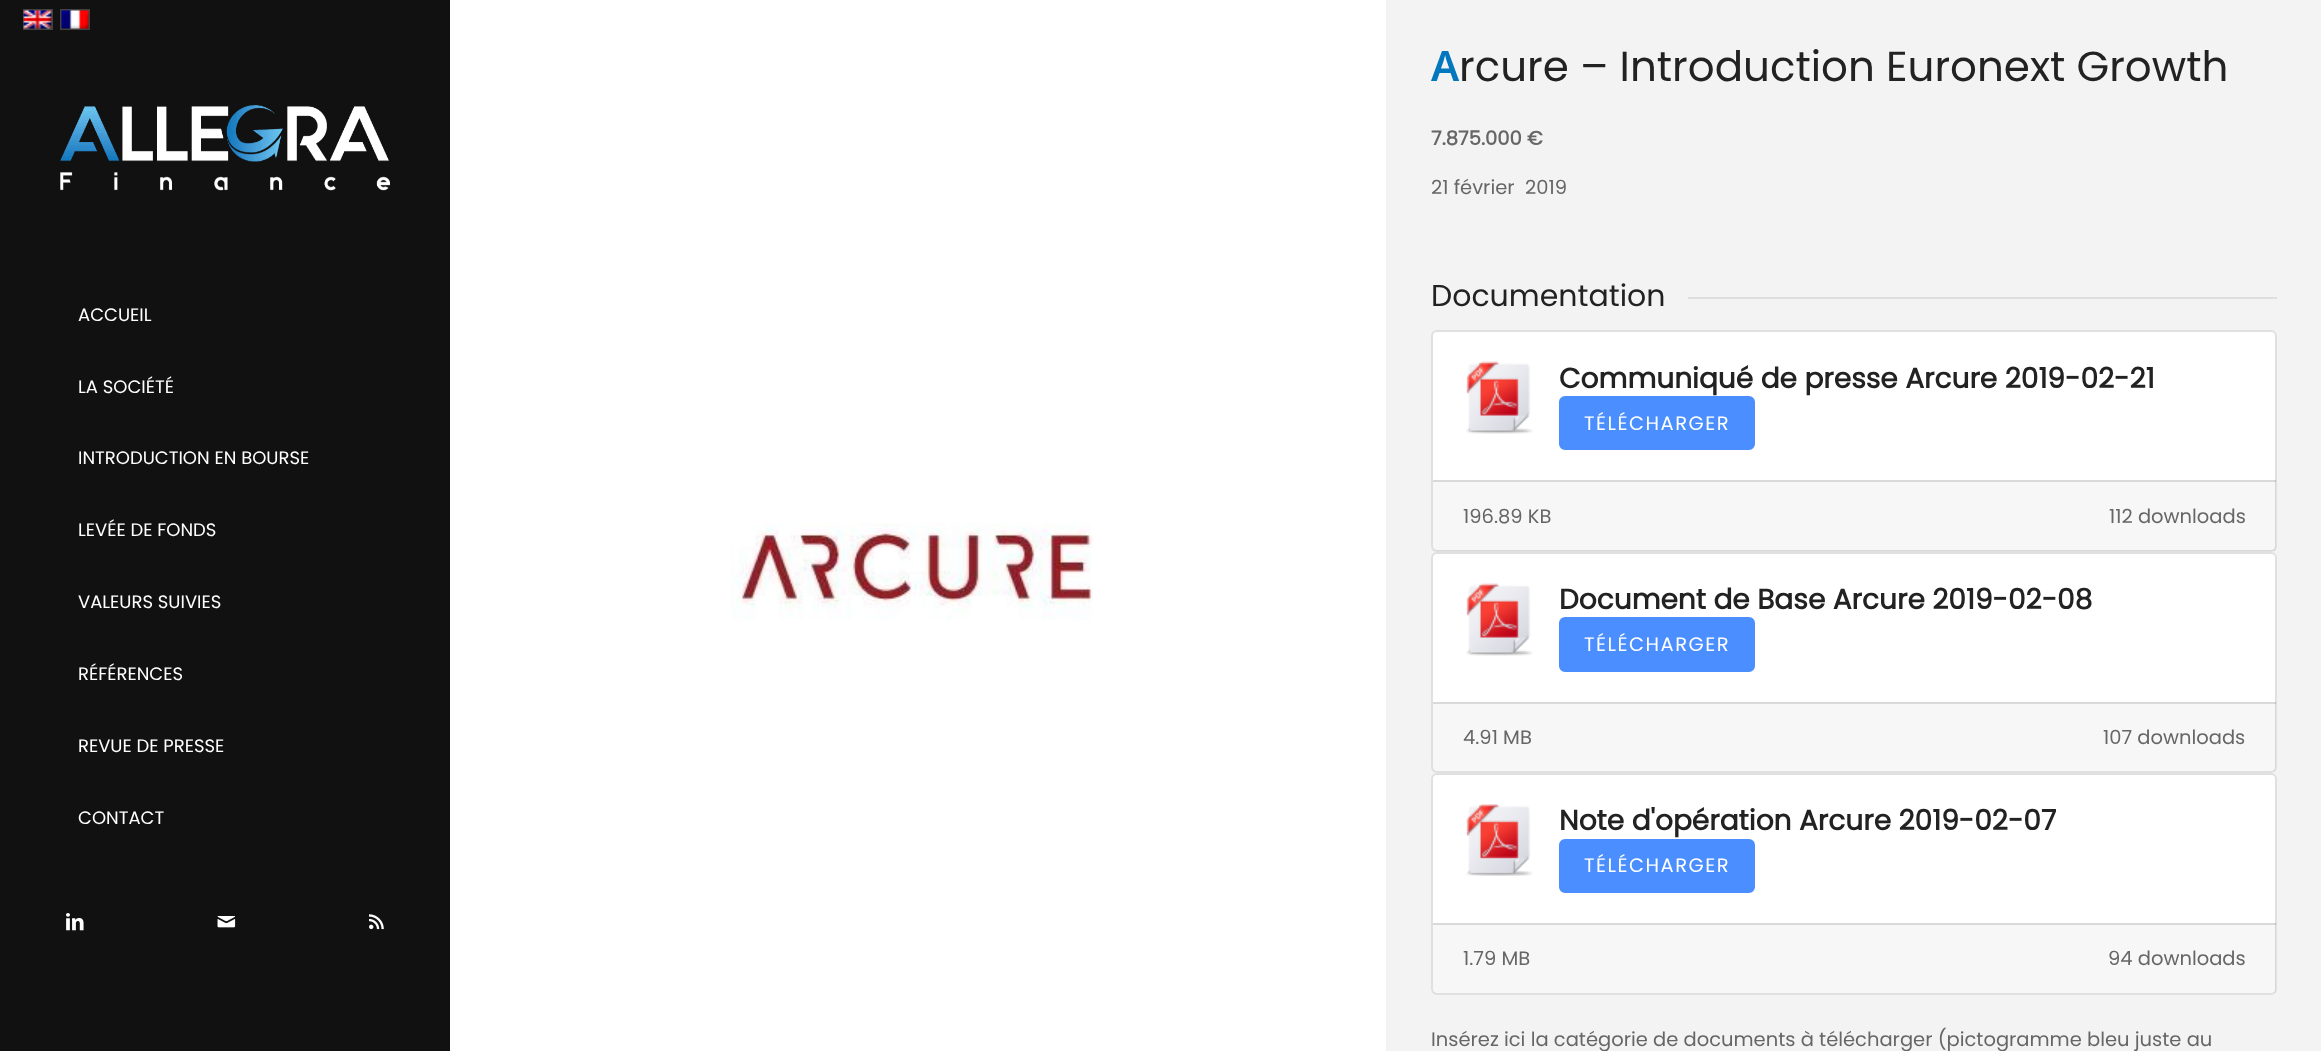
<!DOCTYPE html>
<meta charset="utf-8">
<style>body { margin: 0 } canvas { display: block }</style>
<canvas id="canvas" width="2321" height="1051"></canvas>
<img id="img1" src="images/1.png" hidden>
<img id="img2" src="images/2.png" hidden>
<img id="img3" src="images/3.png" hidden>
<img id="img4" src="images/4.png" hidden>
<img id="img5" src="images/5.png" hidden>
<img id="img6" src="images/6.png" hidden>
<img id="img7" src="images/7.png" hidden>
<img id="img8" src="images/8.png" hidden>
<img id="img9" src="images/9.png" hidden>
<script>
window.onload = function () {
    const canvas = document.getElementById('canvas');
    const context = canvas.getContext('2d');
    context.miterLimit = 4;
    context.fontKerning = 'normal';

    context.fillStyle = 'rgb(17, 17, 17)';
    context.fillRect(0, 0, 2321, 1051);
    context.strokeStyle = 'rgb(65, 65, 65)';
    context.lineWidth = 2;
    context.strokeRect(24, 10, 28, 19);
    context.drawImage(document.getElementById('img1'), 23, 10, 29, 19);
    context.strokeRect(61, 10, 28, 19);
    context.drawImage(document.getElementById('img2'), 61, 10, 28, 19);
    context.drawImage(document.getElementById('img3'), 60, 105, 330, 86);
    context.drawImage(document.getElementById('img4'), 66, 913, 18, 18);
    context.drawImage(document.getElementById('img5'), 217, 916, 19, 12);
    context.drawImage(document.getElementById('img6'), 369, 914, 15, 16);
    context.fillStyle = 'rgb(255, 255, 255)';
    context.fillRect(450, 0, 936, 1051);
    context.drawImage(document.getElementById('img7'), 731, 523, 362, 97);
    context.fillStyle = 'rgb(243, 243, 243)';
    context.fillRect(1386, 0, 935, 1051);
    context.fillStyle = 'rgb(222, 222, 222)';
    context.fillRect(1688, 297, 589, 2);
    context.fillStyle = 'rgb(255, 255, 255)';
    context.beginPath();
    context.roundRect(1431, 330, 846, 222, 6);
    context.fill();
    context.beginPath();
    context.roundRect(1432, 331, 844, 220, 5);
    context.strokeStyle = 'rgba(0, 0, 0, 0.12)';
    context.stroke();
    context.drawImage(document.getElementById('img8'), 1466, 361, 67, 73);
    context.fillStyle = 'rgb(74, 142, 255)';
    context.beginPath();
    context.roundRect(1560, 397, 194, 52, 5);
    context.fill();
    context.strokeStyle = 'rgb(74, 142, 255)';
    context.stroke();
    context.fillStyle = 'rgba(0, 0, 0, 0.03)';
    context.fillRect(1433, 480, 843, 71);
    context.fillStyle = 'rgba(0, 0, 0, 0.12)';
    context.fillRect(1433, 480, 843, 2);
    context.fillStyle = 'rgb(255, 255, 255)';
    context.beginPath();
    context.roundRect(1431, 552, 846, 221, 6);
    context.fill();
    context.beginPath();
    context.roundRect(1432, 553, 844, 219, 5);
    context.strokeStyle = 'rgba(0, 0, 0, 0.12)';
    context.stroke();
    context.drawImage(document.getElementById('img8'), 1466, 583, 67, 73);
    context.fillStyle = 'rgb(74, 142, 255)';
    context.beginPath();
    context.roundRect(1560, 618, 194, 53, 5);
    context.fill();
    context.strokeStyle = 'rgb(74, 142, 255)';
    context.stroke();
    context.fillStyle = 'rgba(0, 0, 0, 0.03)';
    context.fillRect(1433, 702, 843, 69);
    context.fillStyle = 'rgba(0, 0, 0, 0.12)';
    context.fillRect(1433, 702, 843, 2);
    context.fillStyle = 'rgb(255, 255, 255)';
    context.beginPath();
    context.roundRect(1431, 773, 846, 222, 6);
    context.fill();
    context.beginPath();
    context.roundRect(1432, 774, 844, 220, 5);
    context.strokeStyle = 'rgba(0, 0, 0, 0.12)';
    context.stroke();
    context.drawImage(document.getElementById('img9'), 1466, 804, 67, 72);
    context.fillStyle = 'rgb(74, 142, 255)';
    context.beginPath();
    context.roundRect(1560, 840, 194, 52, 5);
    context.fill();
    context.strokeStyle = 'rgb(74, 142, 255)';
    context.stroke();
    context.fillStyle = 'rgba(0, 0, 0, 0.03)';
    context.fillRect(1433, 923, 843, 70);
    context.fillStyle = 'rgba(0, 0, 0, 0.12)';
    context.fillRect(1433, 923, 843, 2);
    context.font = '18px Poppins';
    context.fillStyle = 'rgb(255, 255, 255)';
    context.fillText('ACCUEIL', 78, 321);
    context.fillText('LA SOCIÉTÉ', 78, 393);
    context.fillText('INTRODUCTION EN BOURSE', 78, 464);
    context.fillText('LEVÉE DE FONDS', 78, 536);
    context.fillText('VALEURS SUIVIES', 78, 608);
    context.fillText('RÉFÉRENCES', 78, 680);
    context.fillText('REVUE DE PRESSE', 78, 752);
    context.fillText('CONTACT', 78, 824);
    context.font = '600 42px Noto Sans';
    context.fillStyle = 'rgb(2, 119, 189)';
    context.fillText('A', 1431, 81);
    context.font = '42px Poppins';
    context.fillStyle = 'rgb(34, 34, 34)';
    context.fillText('rcure – Introduction Euronext Growth', 1459, 81);
    context.font = 'bold 19.5px Poppins';
    context.fillStyle = 'rgb(102, 102, 102)';
    context.fillText('7.875.000 €', 1431, 145);
    context.font = '19.5px Poppins';
    context.fillText('21 février  2019', 1431, 194);
    context.font = '30px Poppins';
    context.fillStyle = 'rgb(34, 34, 34)';
    context.fillText('Documentation', 1431, 306);
    context.font = 'bold 28px Poppins';
    context.fillText('Communiqué de presse Arcure 2019-02-21', 1559, 388);
    context.letterSpacing = '1.5px';
    context.font = '19.5px Poppins';
    context.fillStyle = 'rgb(255, 255, 255)';
    context.fillText('TÉLÉCHARGER', 1584, 430);
    context.letterSpacing = '0px';
    context.fillStyle = 'rgb(102, 102, 102)';
    context.fillText('196.89 KB', 1463, 523);
    context.fillText('112 downloads', 2109, 523);
    context.font = 'bold 28px Poppins';
    context.fillStyle = 'rgb(34, 34, 34)';
    context.fillText('Document de Base Arcure 2019-02-08', 1559, 609);
    context.letterSpacing = '1.5px';
    context.font = '19.5px Poppins';
    context.fillStyle = 'rgb(255, 255, 255)';
    context.fillText('TÉLÉCHARGER', 1584, 651);
    context.letterSpacing = '0px';
    context.fillStyle = 'rgb(102, 102, 102)';
    context.fillText('4.91 MB', 1463, 744);
    context.fillText('107 downloads', 2103, 744);
    context.font = 'bold 28px Poppins';
    context.fillStyle = 'rgb(34, 34, 34)';
    context.fillText('Note d\'opération Arcure 2019-02-07', 1559, 830);
    context.letterSpacing = '1.5px';
    context.font = '19.5px Poppins';
    context.fillStyle = 'rgb(255, 255, 255)';
    context.fillText('TÉLÉCHARGER', 1584, 872);
    context.letterSpacing = '0px';
    context.fillStyle = 'rgb(102, 102, 102)';
    context.fillText('1.79 MB', 1463, 965);
    context.fillText('94 downloads', 2108, 965);
    context.fillText('Insérez ici la catégorie de documents à télécharger (pictogramme bleu juste au', 1431, 1046);
};
</script>
